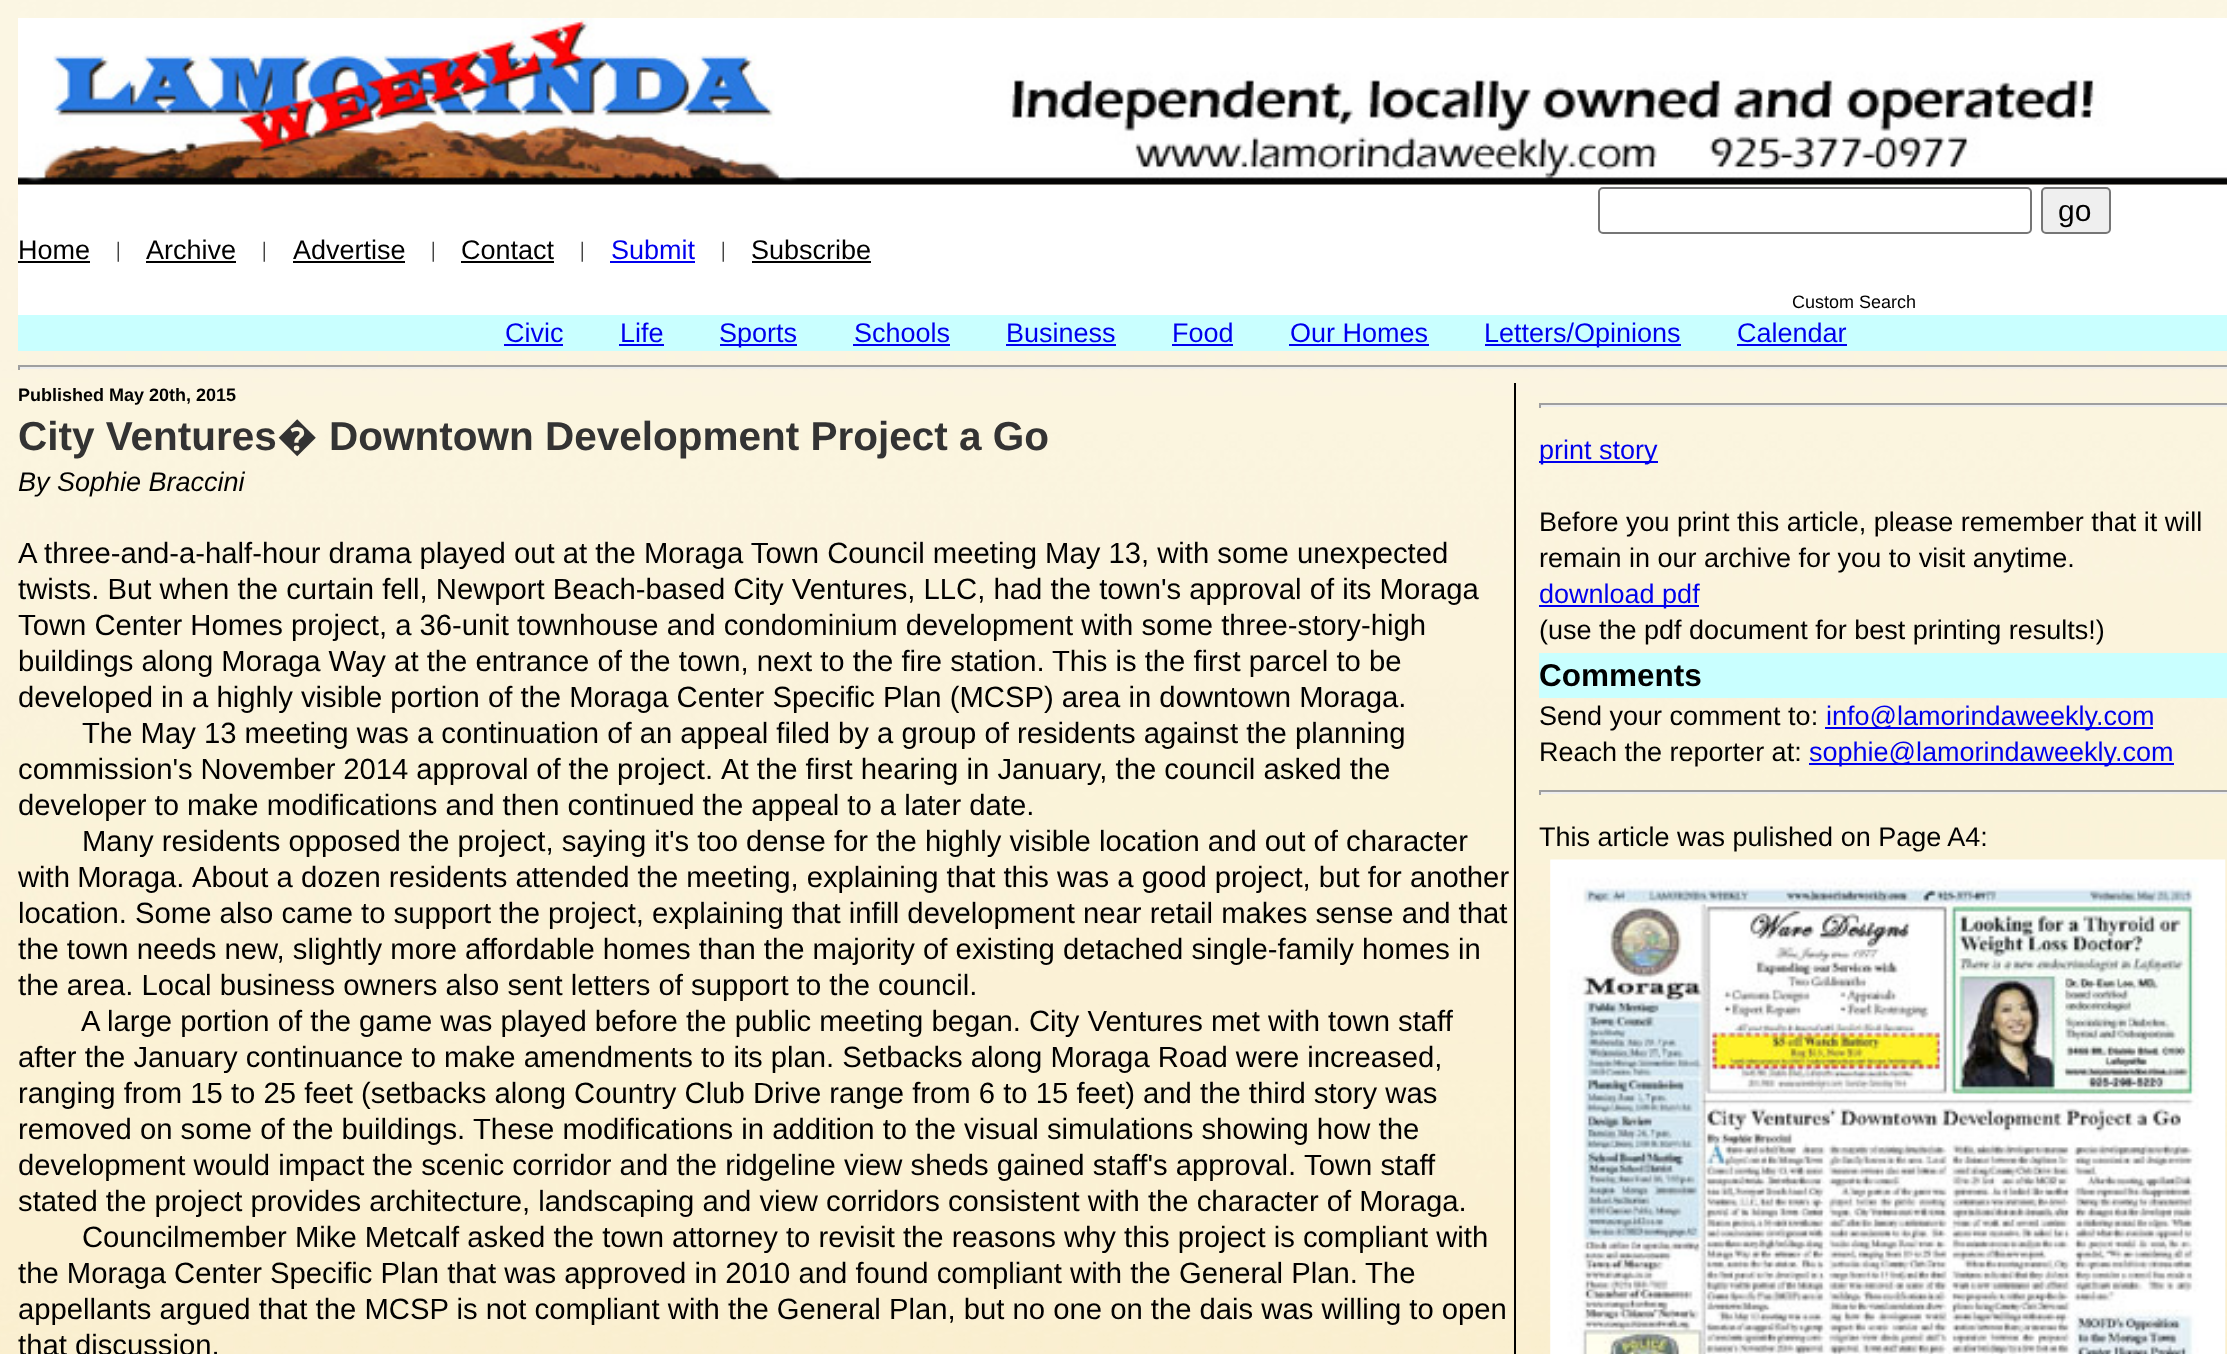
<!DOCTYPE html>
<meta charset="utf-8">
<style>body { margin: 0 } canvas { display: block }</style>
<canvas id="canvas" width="2227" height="1354"></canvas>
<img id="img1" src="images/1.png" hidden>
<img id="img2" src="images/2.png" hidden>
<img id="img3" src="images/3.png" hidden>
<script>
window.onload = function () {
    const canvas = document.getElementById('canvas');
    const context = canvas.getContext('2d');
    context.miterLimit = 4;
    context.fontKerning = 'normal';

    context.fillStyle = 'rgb(255, 255, 255)';
    context.fillRect(0, 0, 2227, 1354);
    context.drawImage(document.getElementById('img1'), 0, 0, 2227, 1354);
    context.drawImage(document.getElementById('img2'), 18, 18, 2209, 167);
    context.fillStyle = 'rgb(201, 255, 255)';
    context.fillRect(18, 315, 2209, 36);
    context.fillStyle = 'rgb(255, 255, 255)';
    context.fillRect(18, 185, 2209, 130);
    context.fillStyle = 'rgb(0, 0, 0)';
    context.fillRect(18, 261, 72, 2);
    context.fillRect(146, 261, 90, 2);
    context.fillRect(293, 261, 112, 2);
    context.fillRect(461, 261, 93, 2);
    context.fillStyle = 'rgb(0, 0, 238)';
    context.fillRect(610, 261, 85, 2);
    context.fillStyle = 'rgb(0, 0, 0)';
    context.fillRect(752, 261, 119, 2);
    context.beginPath();
    context.roundRect(1599, 188, 432, 45, 4);
    context.strokeStyle = 'rgb(118, 118, 118)';
    context.lineWidth = 2;
    context.stroke();
    context.fillStyle = 'rgb(239, 239, 239)';
    context.beginPath();
    context.roundRect(2042, 188, 68, 45, 4);
    context.fill();
    context.stroke();
    context.fillStyle = 'rgb(0, 0, 238)';
    context.fillRect(504, 344, 59, 2);
    context.fillRect(619, 344, 45, 2);
    context.fillRect(720, 344, 77, 2);
    context.fillRect(853, 344, 97, 2);
    context.fillRect(1006, 344, 110, 2);
    context.fillRect(1172, 344, 61, 2);
    context.fillRect(1289, 344, 140, 2);
    context.fillRect(1485, 344, 196, 2);
    context.fillRect(1737, 344, 110, 2);
    context.fillStyle = 'rgb(159, 159, 159)';
    context.fillRect(18, 365, 2209, 2);
    context.fillStyle = 'rgb(238, 238, 238)';
    context.fillRect(18, 367, 2209, 2);
    context.fillStyle = 'rgb(159, 159, 159)';
    context.fillRect(18, 365, 2, 5);
    context.fillStyle = 'rgb(0, 0, 0)';
    context.fillRect(1514, 383, 2, 971);
    context.fillStyle = 'rgb(159, 159, 159)';
    context.fillRect(1539, 403, 688, 2);
    context.fillStyle = 'rgb(238, 238, 238)';
    context.fillRect(1539, 405, 688, 2);
    context.fillStyle = 'rgb(159, 159, 159)';
    context.fillRect(1539, 403, 2, 5);
    context.fillStyle = 'rgb(0, 0, 238)';
    context.fillRect(1539, 461, 119, 2);
    context.fillRect(1539, 605, 160, 2);
    context.fillStyle = 'rgb(201, 255, 255)';
    context.fillRect(1539, 653, 688, 45);
    context.fillStyle = 'rgb(0, 0, 238)';
    context.fillRect(1825, 727, 328, 2);
    context.fillRect(1809, 763, 365, 2);
    context.fillStyle = 'rgb(159, 159, 159)';
    context.fillRect(1539, 790, 688, 2);
    context.fillStyle = 'rgb(238, 238, 238)';
    context.fillRect(1539, 792, 688, 2);
    context.fillStyle = 'rgb(159, 159, 159)';
    context.fillRect(1539, 790, 2, 5);
    context.drawImage(document.getElementById('img3'), 1550, 859, 676, 495);
    context.font = '27px Liberation Sans';
    context.fillStyle = 'rgb(0, 0, 0)';
    context.fillText('Home', 18, 259);
    context.font = '22px Liberation Serif';
    context.fillText('|', 116, 257);
    context.font = '27px Liberation Sans';
    context.fillText('Archive', 146, 259);
    context.font = '22px Liberation Serif';
    context.fillText('|', 262, 257);
    context.font = '27px Liberation Sans';
    context.fillText('Advertise', 293, 259);
    context.font = '22px Liberation Serif';
    context.fillText('|', 431, 257);
    context.font = '27px Liberation Sans';
    context.fillText('Contact', 461, 259);
    context.font = '22px Liberation Serif';
    context.fillText('|', 580, 257);
    context.font = '27px Liberation Sans';
    context.fillStyle = 'rgb(0, 0, 238)';
    context.fillText('Submit', 611, 259);
    context.font = '22px Liberation Serif';
    context.fillStyle = 'rgb(0, 0, 0)';
    context.fillText('|', 721, 257);
    context.font = '27px Liberation Sans';
    context.fillText('Subscribe', 751, 259);
    context.font = '30px Liberation Sans';
    context.fillText('go', 2058, 221);
    context.font = '18px Liberation Sans';
    context.fillText('Custom Search', 1792, 308);
    context.font = '27px Liberation Sans';
    context.fillStyle = 'rgb(0, 0, 238)';
    context.fillText('Civic', 505, 342);
    context.fillText('Life', 620, 342);
    context.fillText('Sports', 719, 342);
    context.fillText('Schools', 854, 342);
    context.fillText('Business', 1006, 342);
    context.fillText('Food', 1172, 342);
    context.fillText('Our Homes', 1290, 342);
    context.fillText('Letters/Opinions', 1484, 342);
    context.fillText('Calendar', 1737, 342);
    context.font = 'bold 18px Liberation Sans';
    context.fillStyle = 'rgb(0, 0, 0)';
    context.fillText('Published May 20th, 2015', 18, 401);
    context.font = 'bold 40.5px Liberation Sans';
    context.fillStyle = 'rgb(51, 51, 51)';
    context.fillText('City Ventures', 18, 450);
    context.font = 'bold 40.5px Noto Sans';
    context.fillText('�', 277, 450);
    context.font = 'bold 40.5px Liberation Sans';
    context.fillText('Downtown Development Project a Go', 329, 450);
    context.font = 'italic 27px Liberation Sans';
    context.fillStyle = 'rgb(0, 0, 0)';
    context.fillText('By Sophie Braccini', 18, 491);
    context.font = '29.25px Liberation Sans';
    context.fillText('A three-and-a-half-hour drama played out at the Moraga Town Council meeting May 13, with some unexpected', 18, 563);
    context.fillText('twists. But when the curtain fell, Newport Beach-based City Ventures, LLC, had the town\'s approval of its Moraga', 18, 599);
    context.fillText('Town Center Homes project, a 36-unit townhouse and condominium development with some three-story-high', 18, 635);
    context.fillText('buildings along Moraga Way at the entrance of the town, next to the fire station.', 18, 671);
    context.fillText('This is the first parcel to be', 1052, 671);
    context.fillText('developed in a highly visible portion of the Moraga Center Specific Plan (MCSP) area in downtown Moraga.', 18, 707);
    context.fillText('The May 13 meeting was a continuation of an appeal filed by a group of residents against the planning', 82, 743);
    context.wordSpacing = '-0.25px';
    context.fillText('commission\'s November 2014 approval of the project.', 18, 779);
    context.wordSpacing = '0px';
    context.fillText('At the first hearing in January, the council asked the', 721, 779);
    context.fillText('developer to make modifications and then continued the appeal to a later date.', 18, 815);
    context.fillText('Many residents opposed the project, saying it\'s too dense for the highly visible location and out of character', 82, 851);
    context.wordSpacing = '-1px';
    context.fillText('with Moraga.', 18, 887);
    context.wordSpacing = '0px';
    context.fillText('About a dozen residents attended the meeting, explaining that this was a good project, but for another', 192, 887);
    context.fillText('location. Some also came to support the project, explaining that infill development near retail makes sense and that', 18, 923);
    context.fillText('the town needs new, slightly more affordable homes than the majority of existing detached single-family homes in', 18, 959);
    context.fillText('the area. Local business owners also sent letters of support to the council.', 18, 995);
    context.fillText('A large portion of the game was played before the public meeting began. City Ventures met with town staff', 81, 1031);
    context.fillText('after the January continuance to make amendments to its plan. Setbacks along Moraga Road were increased,', 18, 1067);
    context.fillText('ranging from 15 to 25 feet (setbacks along Country Club Drive range from 6 to 15 feet) and the third story was', 18, 1103);
    context.fillText('removed on some of the buildings.', 18, 1139);
    context.fillText('These modifications in addition to the visual simulations showing how the', 473, 1139);
    context.fillText('development would impact the scenic corridor and the ridgeline view sheds gained staff\'s approval.', 18, 1175);
    context.fillText('Town staff', 1304, 1175);
    context.fillText('stated the project provides architecture, landscaping and view corridors consistent with the character of Moraga.', 18, 1211);
    context.fillText('Councilmember Mike Metcalf asked the town attorney to revisit the reasons why this project is compliant with', 82, 1247);
    context.fillText('the Moraga Center Specific Plan that was approved in 2010 and found compliant with the General Plan.', 18, 1283);
    context.fillText('The', 1365, 1283);
    context.fillText('appellants argued that the MCSP is not compliant with the General Plan, but no one on the dais was willing to open', 18, 1319);
    context.fillText('that discussion.', 18, 1355);
    context.font = '27px Liberation Sans';
    context.fillStyle = 'rgb(0, 0, 238)';
    context.fillText('print story', 1539, 459);
    context.fillStyle = 'rgb(0, 0, 0)';
    context.fillText('Before you print this article, please remember that it will', 1539, 531);
    context.fillText('remain in our archive for you to visit anytime.', 1539, 567);
    context.fillStyle = 'rgb(0, 0, 238)';
    context.fillText('download pdf', 1539, 603);
    context.fillStyle = 'rgb(0, 0, 0)';
    context.fillText('(use the pdf document for best printing results!)', 1539, 639);
    context.font = 'bold 31.5px Liberation Sans';
    context.fillText('Comments', 1539, 686);
    context.font = '27px Liberation Sans';
    context.fillText('Send your comment to:', 1539, 725);
    context.fillStyle = 'rgb(0, 0, 238)';
    context.fillText('info@lamorindaweekly.com', 1826, 725);
    context.fillStyle = 'rgb(0, 0, 0)';
    context.fillText('Reach the reporter at:', 1539, 761);
    context.fillStyle = 'rgb(0, 0, 238)';
    context.fillText('sophie@lamorindaweekly.com', 1809, 761);
    context.fillStyle = 'rgb(0, 0, 0)';
    context.fillText('This article was pulished on Page A4:', 1539, 846);
};
</script>
